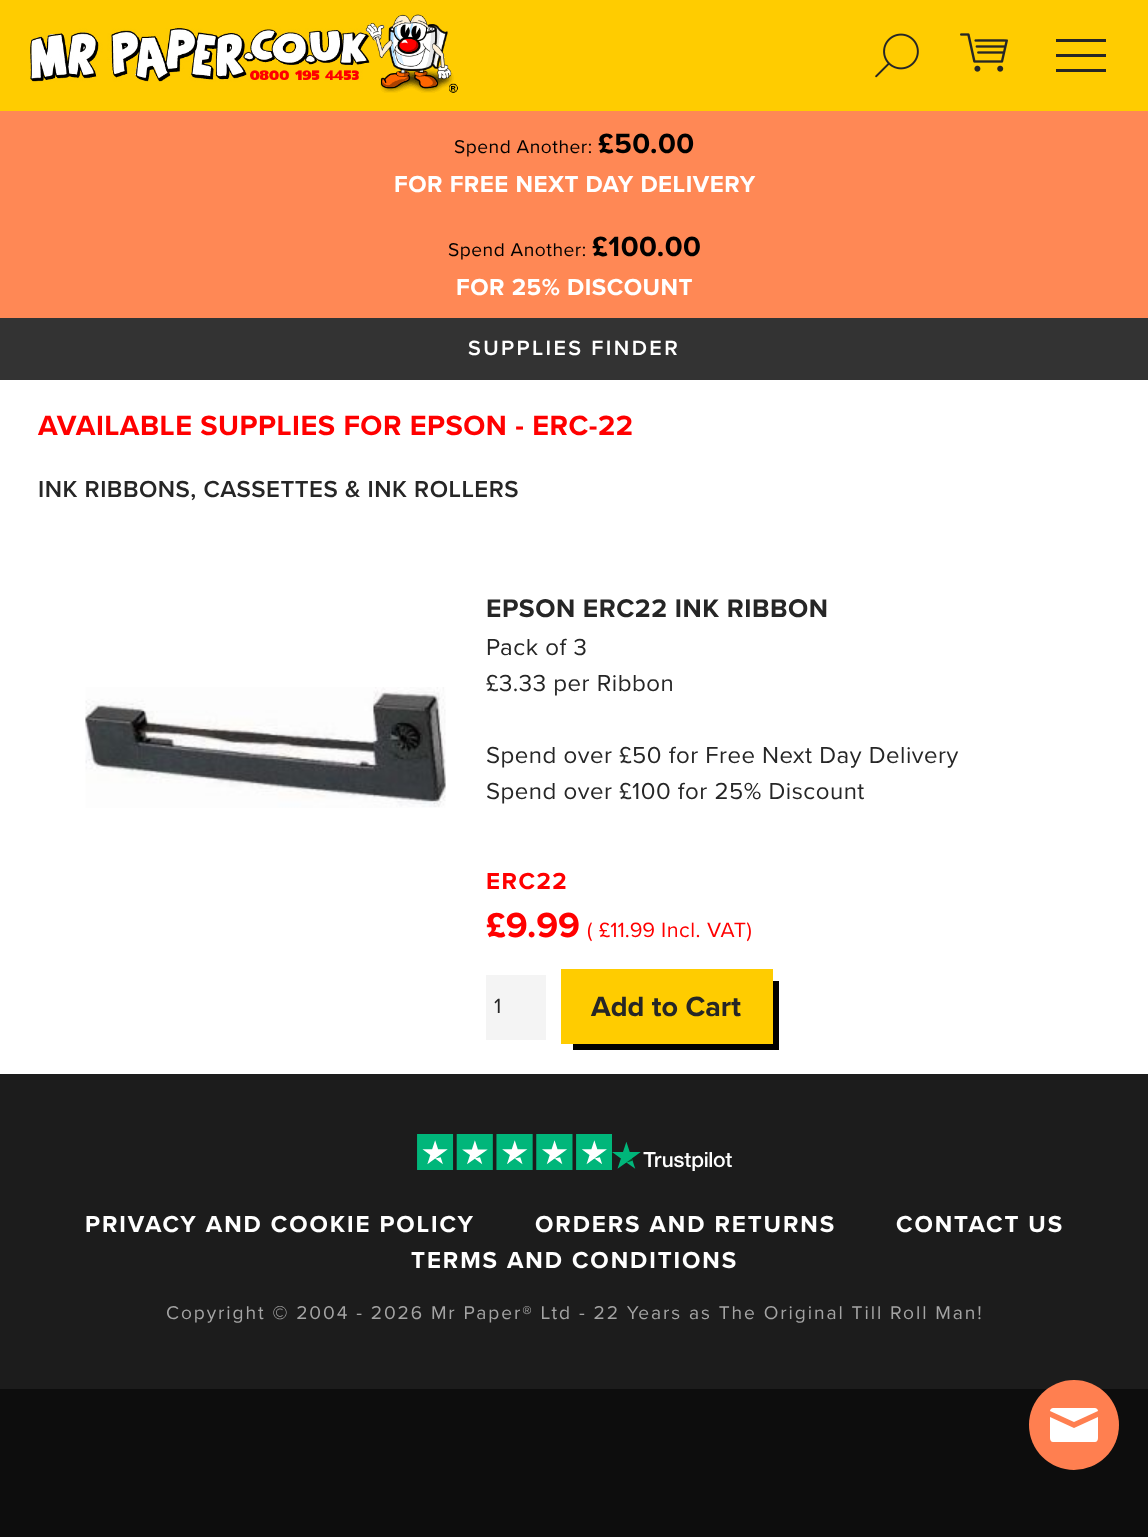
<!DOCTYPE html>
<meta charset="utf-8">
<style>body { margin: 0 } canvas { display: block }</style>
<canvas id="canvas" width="1148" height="1537"></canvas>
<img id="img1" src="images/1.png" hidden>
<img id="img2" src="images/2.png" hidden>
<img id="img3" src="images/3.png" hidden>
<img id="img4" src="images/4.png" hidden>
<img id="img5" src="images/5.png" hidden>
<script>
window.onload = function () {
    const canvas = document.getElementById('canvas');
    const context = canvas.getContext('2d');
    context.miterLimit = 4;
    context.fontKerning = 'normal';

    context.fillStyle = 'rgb(13, 13, 13)';
    context.fillRect(0, 0, 1148, 1537);
    context.fillStyle = 'rgb(255, 255, 255)';
    context.fillRect(0, 380, 1148, 694);
    context.fillStyle = 'rgb(255, 204, 0)';
    context.fillRect(0, 0, 1148, 111);
    context.drawImage(document.getElementById('img1'), 30, 14, 428, 79);
    context.drawImage(document.getElementById('img2'), 875, 33, 44, 45);
    context.drawImage(document.getElementById('img3'), 960, 33, 48, 39);
    context.fillStyle = 'rgb(38, 38, 38)';
    context.fillRect(1056, 69, 50, 3);
    context.fillRect(1056, 54, 50, 3);
    context.fillRect(1056, 39, 50, 3);
    context.fillStyle = 'rgb(255, 136, 85)';
    context.fillRect(0, 111, 1148, 207);
    context.fillStyle = 'rgb(51, 51, 51)';
    context.fillRect(0, 318, 1148, 62);
    context.drawImage(document.getElementById('img4'), 85, 687, 361, 121);
    context.fillStyle = 'rgb(244, 244, 244)';
    context.fillRect(486, 975, 60, 65);
    context.fillStyle = 'rgb(0, 0, 0)';
    context.beginPath();
    context.moveTo(573, 1044);
    context.lineTo(573, 1050);
    context.lineTo(779, 1050);
    context.lineTo(779, 981);
    context.lineTo(772, 981);
    context.lineTo(772, 1044);
    context.closePath();
    context.fill();
    context.fillStyle = 'rgb(255, 204, 0)';
    context.fillRect(561, 969, 212, 75);
    context.fillStyle = 'rgb(28, 28, 28)';
    context.fillRect(0, 1074, 1148, 315);
    context.drawImage(document.getElementById('img5'), 417, 1134, 315, 37);
    context.fillStyle = 'rgb(255, 127, 80)';
    context.beginPath();
    context.arc(1074, 1425, 45, 0, 2 * Math.PI);
    context.fill();
    context.fillStyle = 'rgb(255, 255, 255)';
    context.beginPath();
    context.moveTo(1050, 1411);
    context.lineTo(1074, 1422);
    context.lineTo(1098, 1411);
    context.bezierCurveTo(1098, 1409, 1096, 1408, 1095, 1408);
    context.lineTo(1053, 1408);
    context.bezierCurveTo(1052, 1408, 1050, 1409, 1050, 1411);
    context.closePath();
    context.fill();
    context.beginPath();
    context.moveTo(1098, 1417);
    context.lineTo(1074, 1428);
    context.lineTo(1050, 1417);
    context.lineTo(1050, 1438);
    context.bezierCurveTo(1050, 1440, 1051, 1442, 1053, 1442);
    context.lineTo(1095, 1442);
    context.bezierCurveTo(1097, 1442, 1098, 1440, 1098, 1438);
    context.closePath();
    context.fill();
    context.letterSpacing = '0.5px';
    context.font = '19.2px Proxima Nova';
    context.fillStyle = 'rgb(0, 0, 0)';
    context.fillText('Spend Another:', 454, 153);
    context.font = 'bold 28.8px Proxima Nova';
    context.fillText('£50.00', 598, 153);
    context.font = 'bold 24px Proxima Nova';
    context.fillStyle = 'rgb(255, 255, 255)';
    context.fillText('FOR FREE NEXT DAY DELIVERY', 394, 192);
    context.font = '19.2px Proxima Nova';
    context.fillStyle = 'rgb(0, 0, 0)';
    context.fillText('Spend Another:', 448, 256);
    context.font = 'bold 28.8px Proxima Nova';
    context.fillText('£100.00', 592, 256);
    context.font = 'bold 24px Proxima Nova';
    context.fillStyle = 'rgb(255, 255, 255)';
    context.fillText('FOR 25% DISCOUNT', 456, 295);
    context.letterSpacing = '2.4px';
    context.font = '600 21.5px Proxima Nova';
    context.fillText('SUPPLIES FINDER', 468, 355);
    context.letterSpacing = '0.5px';
    context.font = 'bold 28.8px Proxima Nova';
    context.fillStyle = 'rgb(255, 0, 0)';
    context.fillText('AVAILABLE SUPPLIES FOR EPSON - ERC-22', 38, 435);
    context.font = '600 24px Proxima Nova';
    context.fillStyle = 'rgb(38, 38, 38)';
    context.fillText('INK RIBBONS, CASSETTES & INK ROLLERS', 38, 497);
    context.font = 'bold 26.4px Proxima Nova';
    context.fillText('EPSON ERC22 INK RIBBON', 486, 617);
    context.font = '24px Proxima Nova';
    context.fillText('Pack of 3', 486, 655);
    context.fillText('£3.33 per Ribbon', 486, 691);
    context.fillText('Spend over £50 for Free Next Day Delivery', 486, 763);
    context.fillText('Spend over £100 for 25% Discount', 486, 799);
    context.letterSpacing = '1.5px';
    context.font = 'bold 24px Proxima Nova';
    context.fillStyle = 'rgb(255, 0, 0)';
    context.fillText('ERC22', 486, 889);
    context.letterSpacing = '0px';
    context.font = 'bold 36px Proxima Nova';
    context.fillText('£9.99', 486, 937);
    context.letterSpacing = '0.5px';
    context.font = '21.5px Proxima Nova';
    context.fillText('(', 587, 937);
    context.letterSpacing = '0px';
    context.fillText('£11.99', 599, 937);
    context.letterSpacing = '0.5px';
    context.fillText('Incl. VAT)', 661, 937);
    context.letterSpacing = '0px';
    context.fillStyle = 'rgb(38, 38, 38)';
    context.fillText('1', 494, 1013);
    context.font = 'bold 28.8px Proxima Nova';
    context.fillText('Add to Cart', 591, 1016);
    context.letterSpacing = '1.92px';
    context.font = 'bold 24px Proxima Nova';
    context.fillStyle = 'rgb(255, 255, 255)';
    context.fillText('PRIVACY AND COOKIE POLICY', 85, 1232);
    context.fillText('ORDERS AND RETURNS', 535, 1232);
    context.fillText('CONTACT US', 896, 1232);
    context.fillText('TERMS AND CONDITIONS', 411, 1268);
    context.font = '19.2px Proxima Nova';
    context.fillStyle = 'rgb(164, 164, 164)';
    context.fillText('Copyright © 2004 - 2026 Mr Paper® Ltd - 22 Years as The Original Till Roll Man!', 166, 1319);
};
</script>
